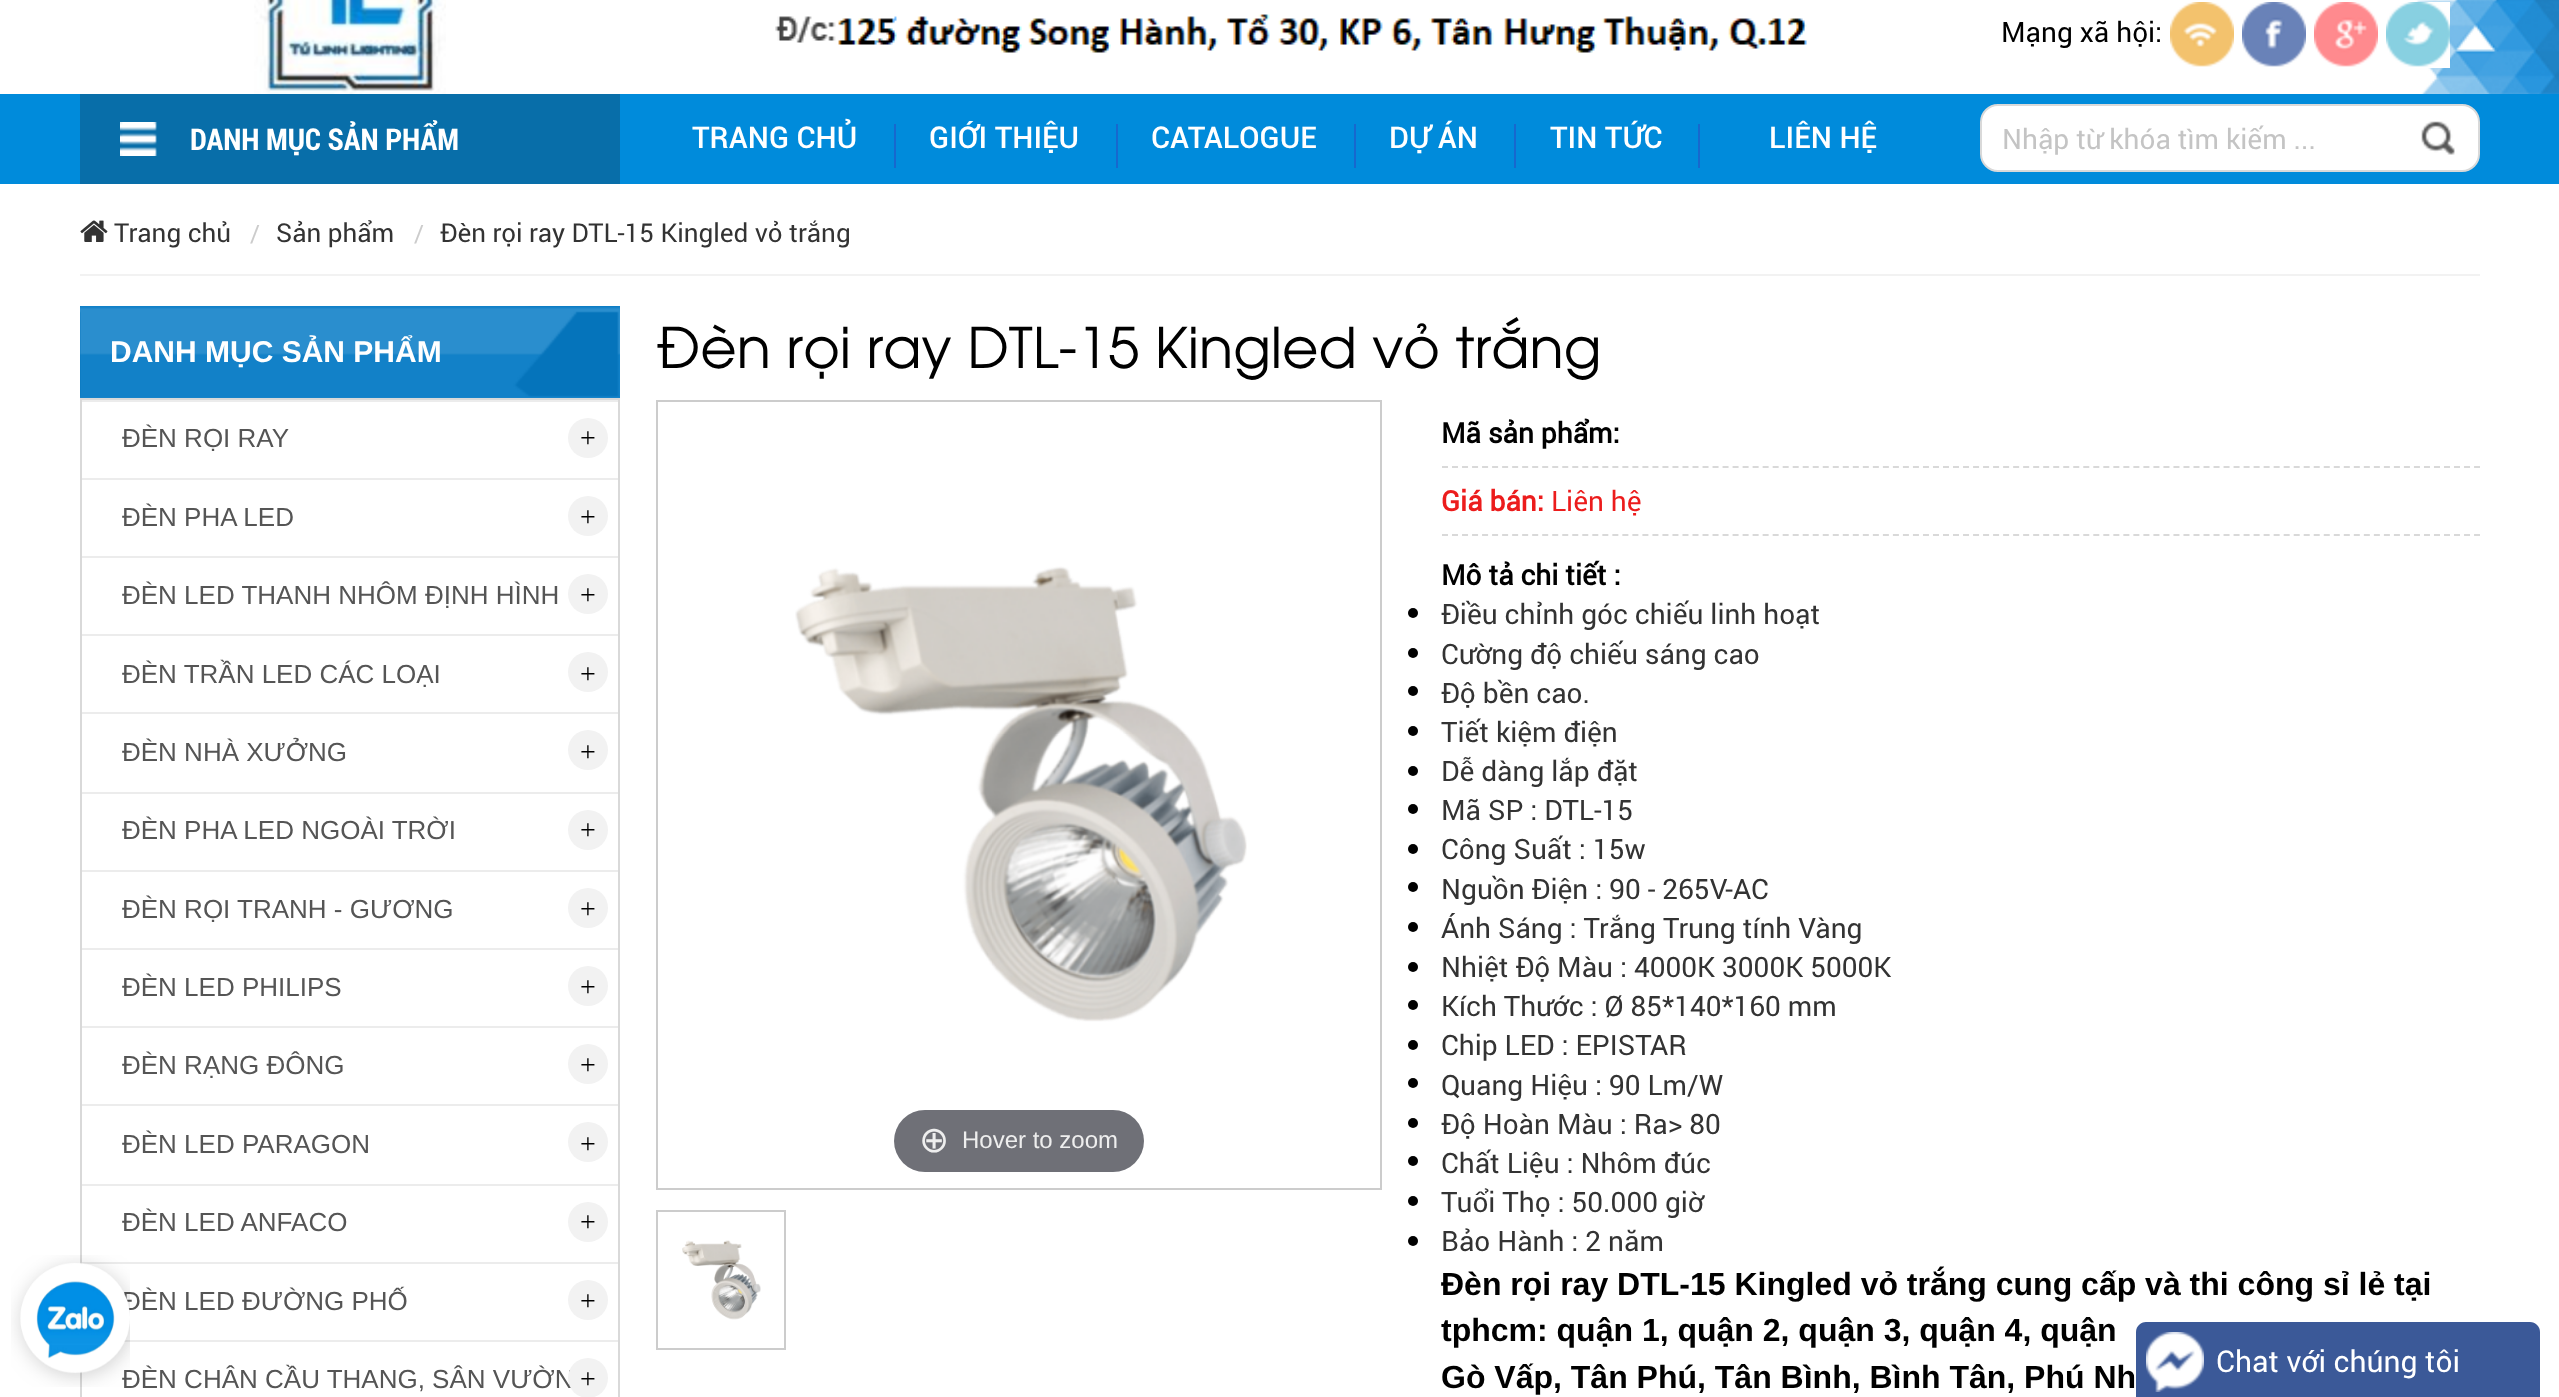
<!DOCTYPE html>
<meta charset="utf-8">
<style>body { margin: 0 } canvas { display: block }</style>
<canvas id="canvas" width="2559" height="1397"></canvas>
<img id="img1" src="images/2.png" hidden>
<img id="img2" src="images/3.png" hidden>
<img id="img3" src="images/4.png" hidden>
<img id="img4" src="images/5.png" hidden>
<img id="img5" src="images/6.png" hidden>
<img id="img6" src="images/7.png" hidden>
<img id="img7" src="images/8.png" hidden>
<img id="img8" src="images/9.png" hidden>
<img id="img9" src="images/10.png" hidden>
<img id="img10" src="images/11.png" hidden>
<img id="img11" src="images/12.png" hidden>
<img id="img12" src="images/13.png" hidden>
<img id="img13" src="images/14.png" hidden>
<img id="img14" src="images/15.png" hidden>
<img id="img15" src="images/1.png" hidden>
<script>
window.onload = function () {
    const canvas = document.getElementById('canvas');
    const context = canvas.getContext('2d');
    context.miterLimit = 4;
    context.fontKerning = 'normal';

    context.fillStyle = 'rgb(255, 255, 255)';
    context.fillRect(0, 0, 2559, 1397);
    context.drawImage(document.getElementById('img1'), 2414, 0, 145, 94);
    context.drawImage(document.getElementById('img2'), 254, 0, 192, 94);
    context.drawImage(document.getElementById('img3'), 775, 14, 1032, 39);
    context.drawImage(document.getElementById('img4'), 2170, 2, 64, 65);
    context.drawImage(document.getElementById('img5'), 2242, 2, 64, 65);
    context.drawImage(document.getElementById('img6'), 2314, 2, 64, 65);
    context.drawImage(document.getElementById('img7'), 2386, 2, 64, 66);
    context.fillStyle = 'rgb(0, 139, 219)';
    context.fillRect(0, 94, 2559, 90);
    context.fillStyle = 'rgb(8, 110, 169)';
    context.fillRect(80, 94, 540, 90);
    context.drawImage(document.getElementById('img8'), 120, 122, 37, 34);
    context.fillStyle = 'rgb(23, 104, 206)';
    context.fillRect(894, 124, 2, 44);
    context.fillRect(1116, 124, 2, 44);
    context.fillRect(1354, 124, 2, 44);
    context.fillRect(1514, 124, 2, 44);
    context.fillRect(1698, 124, 2, 44);
    context.fillStyle = 'rgb(255, 255, 255)';
    context.beginPath();
    context.roundRect(1981, 105, 498, 66, 17);
    context.fill();
    context.strokeStyle = 'rgb(217, 217, 217)';
    context.lineWidth = 2;
    context.stroke();
    context.drawImage(document.getElementById('img9'), 2421, 121, 34, 34);
    context.fillStyle = 'rgb(242, 242, 242)';
    context.fillRect(80, 274, 2400, 2);
    context.drawImage(document.getElementById('img10'), 80, 220, 28, 22);
    context.drawImage(document.getElementById('img11'), 80, 306, 540, 92);
    context.strokeRect(81, 399, 538, 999);
    context.fillStyle = 'rgb(236, 236, 236)';
    context.fillRect(82, 400, 536, 2);
    context.fillStyle = 'rgb(242, 242, 242)';
    context.beginPath();
    context.arc(588, 438, 20, 0, 2 * Math.PI);
    context.fill();
    context.fillStyle = 'rgb(236, 236, 236)';
    context.fillRect(82, 478, 536, 2);
    context.fillStyle = 'rgb(242, 242, 242)';
    context.beginPath();
    context.arc(588, 516, 20, 0, 2 * Math.PI);
    context.fill();
    context.fillStyle = 'rgb(236, 236, 236)';
    context.fillRect(82, 556, 536, 2);
    context.fillStyle = 'rgb(242, 242, 242)';
    context.beginPath();
    context.arc(588, 594, 20, 0, 2 * Math.PI);
    context.fill();
    context.fillStyle = 'rgb(236, 236, 236)';
    context.fillRect(82, 634, 536, 2);
    context.fillStyle = 'rgb(242, 242, 242)';
    context.beginPath();
    context.arc(588, 672, 20, 0, 2 * Math.PI);
    context.fill();
    context.fillStyle = 'rgb(236, 236, 236)';
    context.fillRect(82, 712, 536, 2);
    context.fillStyle = 'rgb(242, 242, 242)';
    context.beginPath();
    context.arc(588, 750, 20, 0, 2 * Math.PI);
    context.fill();
    context.fillStyle = 'rgb(236, 236, 236)';
    context.fillRect(82, 792, 536, 2);
    context.fillStyle = 'rgb(242, 242, 242)';
    context.beginPath();
    context.arc(588, 830, 20, 0, 2 * Math.PI);
    context.fill();
    context.fillStyle = 'rgb(236, 236, 236)';
    context.fillRect(82, 870, 536, 2);
    context.fillStyle = 'rgb(242, 242, 242)';
    context.beginPath();
    context.arc(588, 908, 20, 0, 2 * Math.PI);
    context.fill();
    context.fillStyle = 'rgb(236, 236, 236)';
    context.fillRect(82, 948, 536, 2);
    context.fillStyle = 'rgb(242, 242, 242)';
    context.beginPath();
    context.arc(588, 986, 20, 0, 2 * Math.PI);
    context.fill();
    context.fillStyle = 'rgb(236, 236, 236)';
    context.fillRect(82, 1026, 536, 2);
    context.fillStyle = 'rgb(242, 242, 242)';
    context.beginPath();
    context.arc(588, 1064, 20, 0, 2 * Math.PI);
    context.fill();
    context.fillStyle = 'rgb(236, 236, 236)';
    context.fillRect(82, 1104, 536, 2);
    context.fillStyle = 'rgb(242, 242, 242)';
    context.beginPath();
    context.arc(588, 1142, 20, 0, 2 * Math.PI);
    context.fill();
    context.fillStyle = 'rgb(236, 236, 236)';
    context.fillRect(82, 1184, 536, 2);
    context.fillStyle = 'rgb(242, 242, 242)';
    context.beginPath();
    context.arc(588, 1222, 20, 0, 2 * Math.PI);
    context.fill();
    context.fillStyle = 'rgb(236, 236, 236)';
    context.fillRect(82, 1262, 536, 2);
    context.fillStyle = 'rgb(242, 242, 242)';
    context.beginPath();
    context.arc(588, 1300, 20, 0, 2 * Math.PI);
    context.fill();
    context.fillStyle = 'rgb(236, 236, 236)';
    context.fillRect(123, 1340, 495, 2);
    context.strokeStyle = 'rgb(204, 204, 204)';
    context.strokeRect(657, 401, 724, 788);
    context.drawImage(document.getElementById('img12'), 795, 566, 452, 456);
    context.fillStyle = 'rgb(111, 112, 119)';
    context.beginPath();
    context.roundRect(894, 1110, 250, 62, 31);
    context.fill();
    context.strokeRect(657, 1211, 128, 138);
    context.drawImage(document.getElementById('img13'), 682, 1240, 79, 80);
    context.beginPath();
    context.moveTo(1442, 467);
    context.lineTo(2480, 467);
    context.strokeStyle = 'rgb(217, 217, 217)';
    context.setLineDash([6, 4.02]);
    context.stroke();
    context.beginPath();
    context.moveTo(1442, 535);
    context.lineTo(2480, 535);
    context.stroke();
    context.fillStyle = 'rgb(0, 0, 0)';
    context.beginPath();
    context.arc(1413, 613, 5, 0, 2 * Math.PI);
    context.fill();
    context.beginPath();
    context.arc(1413, 653, 5, 0, 2 * Math.PI);
    context.fill();
    context.beginPath();
    context.arc(1413, 691, 5, 0, 2 * Math.PI);
    context.fill();
    context.beginPath();
    context.arc(1413, 731, 5, 0, 2 * Math.PI);
    context.fill();
    context.beginPath();
    context.arc(1413, 771, 5, 0, 2 * Math.PI);
    context.fill();
    context.beginPath();
    context.arc(1413, 809, 5, 0, 2 * Math.PI);
    context.fill();
    context.beginPath();
    context.arc(1413, 849, 5, 0, 2 * Math.PI);
    context.fill();
    context.beginPath();
    context.arc(1413, 887, 5, 0, 2 * Math.PI);
    context.fill();
    context.beginPath();
    context.arc(1413, 927, 5, 0, 2 * Math.PI);
    context.fill();
    context.beginPath();
    context.arc(1413, 967, 5, 0, 2 * Math.PI);
    context.fill();
    context.beginPath();
    context.arc(1413, 1005, 5, 0, 2 * Math.PI);
    context.fill();
    context.beginPath();
    context.arc(1413, 1045, 5, 0, 2 * Math.PI);
    context.fill();
    context.beginPath();
    context.arc(1413, 1083, 5, 0, 2 * Math.PI);
    context.fill();
    context.beginPath();
    context.arc(1413, 1123, 5, 0, 2 * Math.PI);
    context.fill();
    context.beginPath();
    context.arc(1413, 1161, 5, 0, 2 * Math.PI);
    context.fill();
    context.beginPath();
    context.arc(1413, 1201, 5, 0, 2 * Math.PI);
    context.fill();
    context.beginPath();
    context.arc(1413, 1241, 5, 0, 2 * Math.PI);
    context.fill();
    context.fillStyle = 'rgb(59, 89, 152)';
    context.beginPath();
    context.moveTo(2146, 1322);
    context.lineTo(2530, 1322);
    context.bezierCurveTo(2535.5, 1322, 2540, 1326.5, 2540, 1332);
    context.lineTo(2540, 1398);
    context.lineTo(2136, 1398);
    context.lineTo(2136, 1332);
    context.bezierCurveTo(2136, 1326.5, 2140.5, 1322, 2146, 1322);
    context.closePath();
    context.fill();
    context.drawImage(document.getElementById('img14'), 2146, 1332, 58, 60);
    context.font = '28px Roboto';
    context.fillStyle = 'rgb(0, 0, 0)';
    context.fillText('Mạng xã hội:', 2001, 42);
    context.font = 'bold 30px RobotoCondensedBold';
    context.fillStyle = 'rgb(255, 255, 255)';
    context.fillText('DANH MỤC SẢN PHẨM', 190, 150);
    context.font = '500 30px Roboto';
    context.fillText('TRANG CHỦ', 692, 148);
    context.fillText('GIỚI THIỆU', 929, 148);
    context.fillText('CATALOGUE', 1151, 148);
    context.fillText('DỰ ÁN', 1389, 148);
    context.fillText('TIN TỨC', 1550, 148);
    context.fillText('LIÊN HỆ', 1769, 148);
    context.font = '28px Roboto';
    context.fillStyle = 'rgb(196, 196, 196)';
    context.fillText('Nhập từ khóa tìm kiếm ...', 2002, 149);
    context.font = '26px Roboto';
    context.fillStyle = 'rgb(51, 51, 51)';
    context.fillText('Trang chủ', 114, 242);
    context.font = '24px Roboto';
    context.fillStyle = 'rgb(204, 204, 204)';
    context.fillText('/', 250, 242);
    context.font = '26px Roboto';
    context.fillStyle = 'rgb(51, 51, 51)';
    context.fillText('Sản phẩm', 276, 242);
    context.font = '24px Roboto';
    context.fillStyle = 'rgb(204, 204, 204)';
    context.fillText('/', 414, 242);
    context.font = '26px Roboto';
    context.fillStyle = 'rgb(51, 51, 51)';
    context.fillText('Đèn rọi ray DTL-15 Kingled vỏ trắng', 440, 242);
    context.font = 'bold 30px Liberation Sans';
    context.fillStyle = 'rgb(255, 255, 255)';
    context.fillText('DANH MỤC SẢN PHẨM', 110, 362);
    context.font = '26px Liberation Sans';
    context.fillStyle = 'rgb(85, 85, 85)';
    context.fillText('ĐÈN RỌI RAY', 122, 447);
    context.font = '28px Liberation Serif';
    context.fillStyle = 'rgb(0, 0, 0)';
    context.fillText('+', 580, 447);
    context.font = '26px Liberation Sans';
    context.fillStyle = 'rgb(85, 85, 85)';
    context.fillText('ĐÈN PHA LED', 122, 526);
    context.font = '28px Liberation Serif';
    context.fillStyle = 'rgb(0, 0, 0)';
    context.fillText('+', 580, 526);
    context.font = '26px Liberation Sans';
    context.fillStyle = 'rgb(85, 85, 85)';
    context.fillText('ĐÈN LED THANH NHÔM ĐỊNH HÌNH', 122, 604);
    context.font = '28px Liberation Serif';
    context.fillStyle = 'rgb(0, 0, 0)';
    context.fillText('+', 580, 604);
    context.font = '26px Liberation Sans';
    context.fillStyle = 'rgb(85, 85, 85)';
    context.fillText('ĐÈN TRẦN LED CÁC LOẠI', 122, 683);
    context.font = '28px Liberation Serif';
    context.fillStyle = 'rgb(0, 0, 0)';
    context.fillText('+', 580, 683);
    context.font = '26px Liberation Sans';
    context.fillStyle = 'rgb(85, 85, 85)';
    context.fillText('ĐÈN NHÀ XƯỞNG', 122, 761);
    context.font = '28px Liberation Serif';
    context.fillStyle = 'rgb(0, 0, 0)';
    context.fillText('+', 580, 761);
    context.font = '26px Liberation Sans';
    context.fillStyle = 'rgb(85, 85, 85)';
    context.fillText('ĐÈN PHA LED NGOÀI TRỜI', 122, 839);
    context.font = '28px Liberation Serif';
    context.fillStyle = 'rgb(0, 0, 0)';
    context.fillText('+', 580, 839);
    context.font = '26px Liberation Sans';
    context.fillStyle = 'rgb(85, 85, 85)';
    context.fillText('ĐÈN RỌI TRANH - GƯƠNG', 122, 918);
    context.font = '28px Liberation Serif';
    context.fillStyle = 'rgb(0, 0, 0)';
    context.fillText('+', 580, 918);
    context.font = '26px Liberation Sans';
    context.fillStyle = 'rgb(85, 85, 85)';
    context.fillText('ĐÈN LED PHILIPS', 122, 996);
    context.font = '28px Liberation Serif';
    context.fillStyle = 'rgb(0, 0, 0)';
    context.fillText('+', 580, 996);
    context.font = '26px Liberation Sans';
    context.fillStyle = 'rgb(85, 85, 85)';
    context.fillText('ĐÈN RẠNG ĐÔNG', 122, 1074);
    context.font = '28px Liberation Serif';
    context.fillStyle = 'rgb(0, 0, 0)';
    context.fillText('+', 580, 1074);
    context.font = '26px Liberation Sans';
    context.fillStyle = 'rgb(85, 85, 85)';
    context.fillText('ĐÈN LED PARAGON', 122, 1153);
    context.font = '28px Liberation Serif';
    context.fillStyle = 'rgb(0, 0, 0)';
    context.fillText('+', 580, 1153);
    context.font = '26px Liberation Sans';
    context.fillStyle = 'rgb(85, 85, 85)';
    context.fillText('ĐÈN LED ANFACO', 122, 1231);
    context.font = '28px Liberation Serif';
    context.fillStyle = 'rgb(0, 0, 0)';
    context.fillText('+', 580, 1231);
    context.font = '26px Liberation Sans';
    context.fillStyle = 'rgb(85, 85, 85)';
    context.fillText('ĐÈN LED ĐƯỜNG PHỐ', 122, 1310);
    context.font = '28px Liberation Serif';
    context.fillStyle = 'rgb(0, 0, 0)';
    context.fillText('+', 580, 1310);
    context.font = '26px Liberation Sans';
    context.fillStyle = 'rgb(85, 85, 85)';
    context.fillText('ĐÈN CHÂN CẦU THANG, SÂN VƯỜN', 122, 1388);
    context.drawImage(document.getElementById('img15'), 11, 1255, 119, 132);
    context.fillStyle = 'rgb(242, 242, 242)';
    context.beginPath();
    context.arc(588, 1378, 20, 0, 2 * Math.PI);
    context.fill();
    context.font = '28px Liberation Serif';
    context.fillStyle = 'rgb(0, 0, 0)';
    context.fillText('+', 580, 1388);
    context.font = '56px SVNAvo';
    context.fillText('Đèn rọi ray DTL-15 Kingled vỏ trắng', 656, 368);
    context.font = '36px DejaVu Sans';
    context.fillStyle = 'rgb(238, 238, 238)';
    context.fillText('⊕', 919, 1152);
    context.font = '24px Liberation Sans';
    context.fillText('Hover to zoom', 962, 1148);
    context.font = 'bold 28px Roboto';
    context.fillStyle = 'rgb(0, 0, 0)';
    context.fillText('Mã sản phẩm:', 1441, 443);
    context.fillStyle = 'rgb(236, 28, 28)';
    context.fillText('Giá bán:', 1441, 511);
    context.font = '28px Roboto';
    context.fillText('Liên hệ', 1551, 511);
    context.font = 'bold 28px Roboto';
    context.fillStyle = 'rgb(0, 0, 0)';
    context.fillText('Mô tả chi tiết :', 1441, 585);
    context.font = '28px Roboto';
    context.fillStyle = 'rgb(51, 51, 51)';
    context.fillText('Điều chỉnh góc chiếu linh hoạt', 1441, 624);
    context.fillText('Cường độ chiếu sáng cao', 1441, 664);
    context.fillText('Độ bền cao.', 1441, 703);
    context.fillText('Tiết kiệm điện', 1441, 742);
    context.fillText('Dễ dàng lắp đặt', 1441, 781);
    context.fillText('Mã SP : DTL-15', 1441, 820);
    context.fillText('Công Suất : 15w', 1441, 859);
    context.fillText('Nguồn Điện : 90 - 265V-AC', 1441, 899);
    context.fillText('Ánh Sáng : Trắng Trung tính Vàng', 1441, 938);
    context.fillText('Nhiệt Độ Màu : 4000K 3000K 5000K', 1441, 977);
    context.fillText('Kích Thước : Ø 85*140*160 mm', 1441, 1016);
    context.fillText('Chip LED : EPISTAR', 1441, 1055);
    context.fillText('Quang Hiệu : 90 Lm/W', 1441, 1095);
    context.fillText('Độ Hoàn Màu : Ra> 80', 1441, 1134);
    context.fillText('Chất Liệu : Nhôm đúc', 1441, 1173);
    context.fillText('Tuổi Thọ : 50.000 giờ', 1441, 1212);
    context.fillText('Bảo Hành : 2 năm', 1441, 1251);
    context.font = 'bold 32px Liberation Sans';
    context.fillStyle = 'rgb(0, 0, 0)';
    context.fillText('Đèn rọi ray DTL-15 Kingled vỏ trắng cung cấp và thi công sỉ lẻ tại', 1441, 1295);
    context.fillText('tphcm: quận 1, quận 2, quận 3, quận 4, quận', 1441, 1341);
    context.fillText('Gò Vấp, Tân Phú, Tân Bình, Bình Tân, Phú Nh', 1441, 1388);
    context.font = '30px Roboto';
    context.fillStyle = 'rgb(255, 255, 255)';
    context.fillText('Chat với chúng tôi', 2216, 1372);
};
</script>
